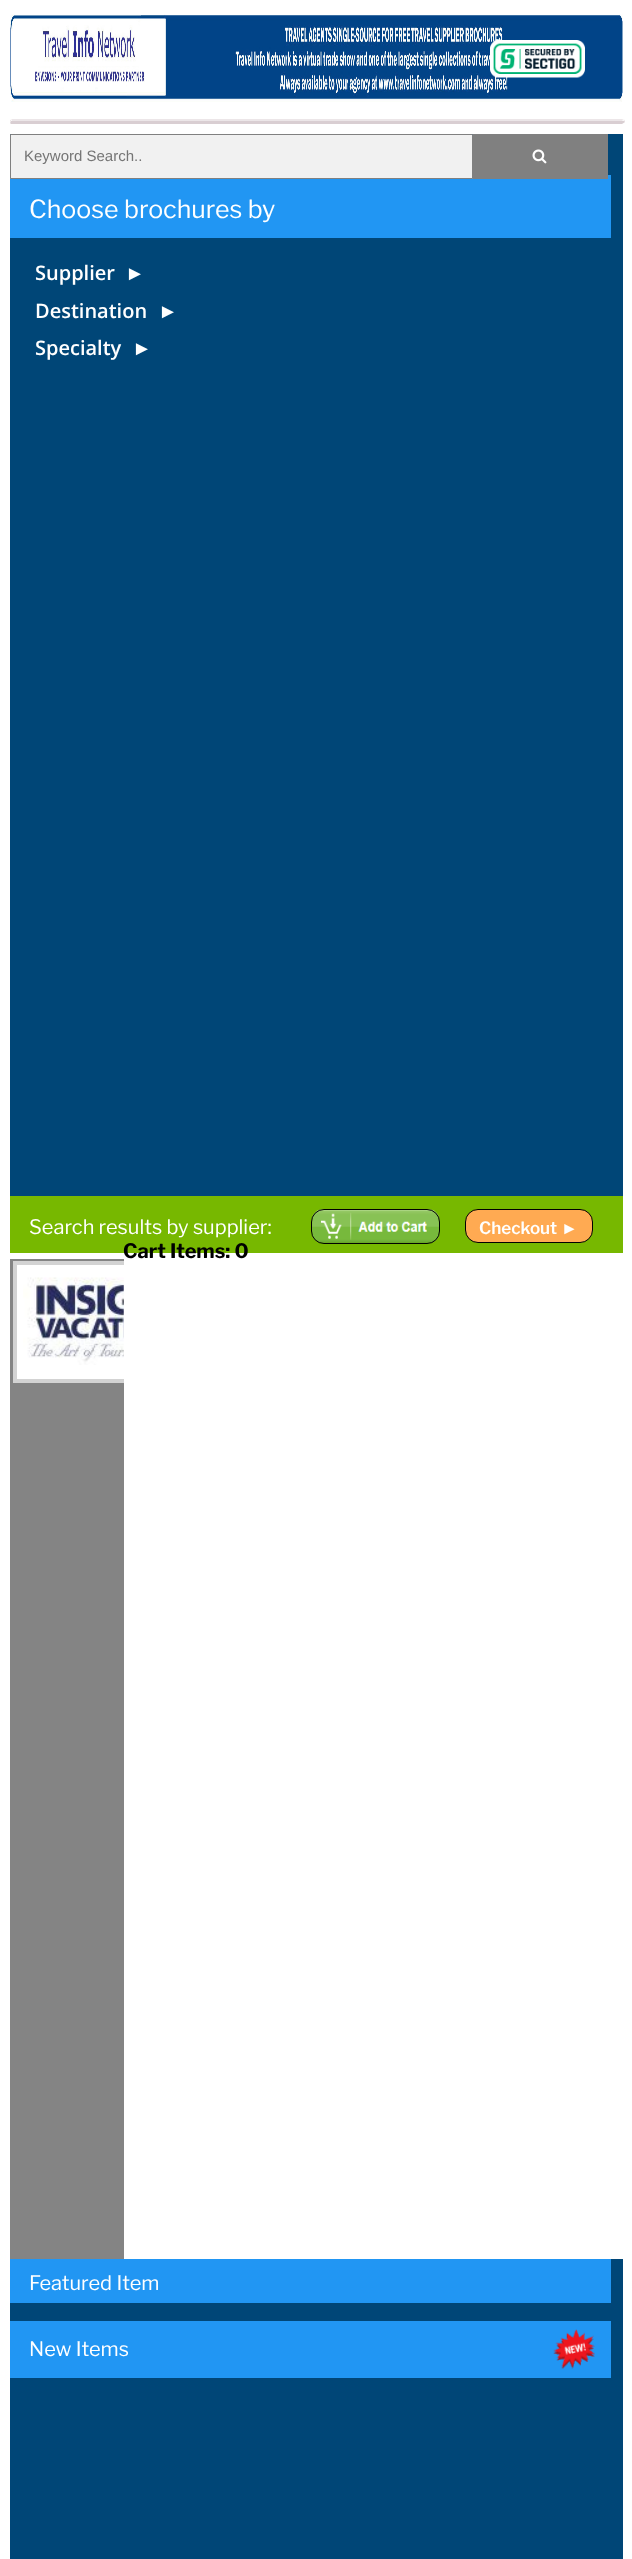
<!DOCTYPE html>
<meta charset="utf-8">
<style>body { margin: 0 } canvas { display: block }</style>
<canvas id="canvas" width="632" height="2559"></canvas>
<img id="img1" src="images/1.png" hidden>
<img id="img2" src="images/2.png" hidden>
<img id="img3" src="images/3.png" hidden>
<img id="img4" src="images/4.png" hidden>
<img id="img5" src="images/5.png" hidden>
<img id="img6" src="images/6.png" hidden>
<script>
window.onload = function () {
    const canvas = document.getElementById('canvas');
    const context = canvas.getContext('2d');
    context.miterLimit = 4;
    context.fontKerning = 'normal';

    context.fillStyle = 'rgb(255, 255, 255)';
    context.fillRect(0, 0, 632, 2559);
    context.drawImage(document.getElementById('img1'), 10, 14, 613, 88);
    context.drawImage(document.getElementById('img2'), 490, 40, 95, 38);
    context.fillStyle = 'rgb(236, 230, 232)';
    context.beginPath();
    context.moveTo(12, 119);
    context.lineTo(11, 119);
    context.lineTo(12, 120);
    context.lineTo(12, 121);
    context.lineTo(622, 121);
    context.lineTo(623, 120);
    context.lineTo(622, 120);
    context.lineTo(624, 120);
    context.lineTo(622, 119);
    context.closePath();
    context.fill();
    context.beginPath();
    context.moveTo(624, 119.5);
    context.bezierCurveTo(625, 120, 625, 121.5, 624.5, 122.5);
    context.lineTo(624, 121);
    context.lineTo(622.5, 121);
    context.lineTo(623.5, 120.5);
    context.lineTo(624, 121);
    context.lineTo(624, 120);
    context.closePath();
    context.fill();
    context.fillStyle = 'rgb(217, 206, 210)';
    context.beginPath();
    context.moveTo(11, 124);
    context.lineTo(10, 123);
    context.lineTo(11, 121);
    context.lineTo(624, 121);
    context.lineTo(625, 122);
    context.lineTo(622, 124);
    context.closePath();
    context.fill();
    context.fillStyle = 'rgb(236, 230, 232)';
    context.beginPath();
    context.moveTo(10, 120.5);
    context.lineTo(10.5, 119.5);
    context.lineTo(11, 120);
    context.lineTo(11, 121);
    context.lineTo(11.5, 120.5);
    context.lineTo(12.5, 121);
    context.lineTo(11, 121);
    context.lineTo(10, 123);
    context.closePath();
    context.fill();
    context.fillStyle = 'rgb(0, 70, 119)';
    context.fillRect(10, 134, 613, 1062);
    context.fillStyle = 'rgb(33, 150, 243)';
    context.fillRect(10, 175, 601, 63);
    context.fillStyle = 'rgb(241, 241, 241)';
    context.beginPath();
    context.rect(10.5, 134.5, 462, 44);
    context.fill();
    context.strokeStyle = 'rgb(128, 128, 128)';
    context.stroke();
    context.fillStyle = 'rgb(128, 128, 128)';
    context.fillRect(473, 134, 135, 45);
    context.drawImage(document.getElementById('img3'), 532, 149, 15, 15);
    context.fillStyle = 'rgb(119, 184, 0)';
    context.fillRect(10, 1196, 613, 57);
    context.drawImage(document.getElementById('img4'), 311, 1209, 129, 35);
    context.beginPath();
    context.roundRect(311.5, 1209.5, 128, 34, 12.5);
    context.strokeStyle = 'rgb(0, 0, 0)';
    context.stroke();
    context.fillStyle = 'rgb(255, 170, 82)';
    context.beginPath();
    context.roundRect(465.5, 1209.5, 127, 33, 12.5);
    context.fill();
    context.stroke();
    context.fillStyle = 'rgb(132, 132, 132)';
    context.fillRect(10, 1259, 114, 1000);
    context.fillStyle = 'rgb(255, 255, 255)';
    context.fillRect(17, 1265, 107, 114);
    context.save();
    context.beginPath();
    context.rect(10, 1259, 114, 1000);
    context.clip();
    context.strokeStyle = 'rgb(211, 211, 211)';
    context.lineWidth = 4;
    context.strokeRect(15, 1263, 193, 118);
    context.restore();
    context.drawImage(document.getElementById('img5'), 23, 1277, 101, 88);
    context.fillStyle = 'rgb(0, 70, 119)';
    context.fillRect(10, 2259, 613, 300);
    context.fillStyle = 'rgb(33, 150, 243)';
    context.fillRect(10, 2259, 601, 44);
    context.fillRect(10, 2321, 601, 57);
    context.drawImage(document.getElementById('img6'), 553, 2329, 42, 40);
    context.font = '15px Liberation Sans';
    context.fillStyle = 'rgb(117, 117, 117)';
    context.fillText('Keyword Search..', 24, 161);
    context.font = '25px Libre Franklin';
    context.fillStyle = 'rgb(255, 255, 255)';
    context.fillText('Choose brochures by', 29, 218);
    context.font = '600 20px Open Sans';
    context.fillText('Supplier', 35, 280);
    context.font = 'bold 20px Liberation Sans';
    context.fillText('►', 125, 280);
    context.font = '600 20px Open Sans';
    context.fillText('Destination', 35, 318);
    context.font = 'bold 20px Liberation Sans';
    context.fillText('►', 158, 318);
    context.font = '600 20px Open Sans';
    context.fillText('Specialty', 35, 355);
    context.font = 'bold 20px Liberation Sans';
    context.fillText('►', 132, 355);
    context.font = '20px Libre Franklin';
    context.fillText('Search results by supplier:', 29, 1234);
    context.font = '600 17px Libre Franklin';
    context.fillText('Checkout', 479, 1234);
    context.font = 'bold 17px Liberation Sans';
    context.fillText('►', 561, 1234);
    context.font = 'bold 20px Libre Franklin';
    context.fillStyle = 'rgb(0, 0, 0)';
    context.fillText('Cart Items: 0', 123, 1258);
    context.font = '20px Libre Franklin';
    context.fillStyle = 'rgb(255, 255, 255)';
    context.fillText('Featured Item', 29, 2290);
    context.fillText('New Items', 29, 2356);
};
</script>
